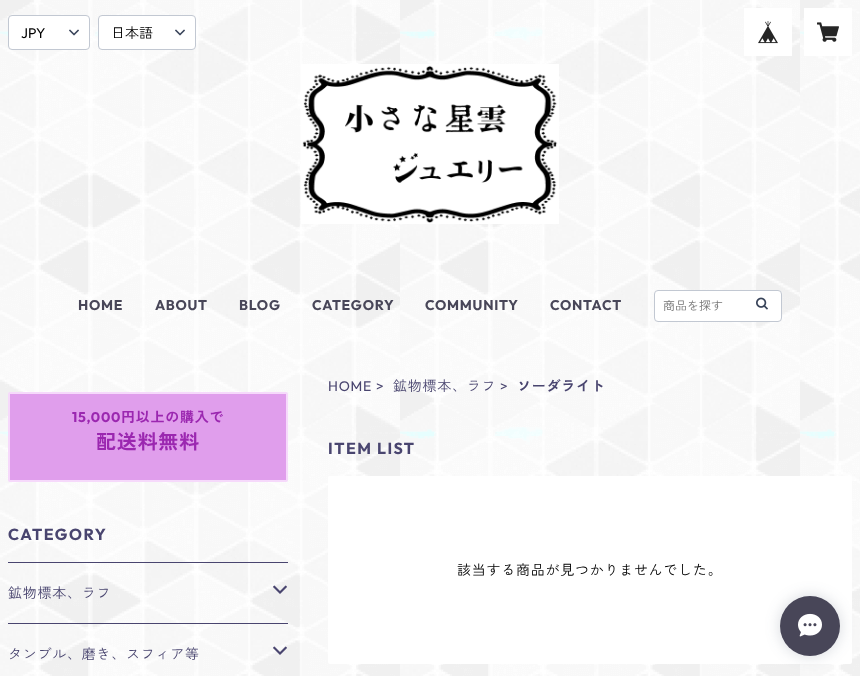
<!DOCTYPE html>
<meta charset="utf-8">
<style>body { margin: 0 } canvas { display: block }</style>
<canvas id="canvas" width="860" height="676"></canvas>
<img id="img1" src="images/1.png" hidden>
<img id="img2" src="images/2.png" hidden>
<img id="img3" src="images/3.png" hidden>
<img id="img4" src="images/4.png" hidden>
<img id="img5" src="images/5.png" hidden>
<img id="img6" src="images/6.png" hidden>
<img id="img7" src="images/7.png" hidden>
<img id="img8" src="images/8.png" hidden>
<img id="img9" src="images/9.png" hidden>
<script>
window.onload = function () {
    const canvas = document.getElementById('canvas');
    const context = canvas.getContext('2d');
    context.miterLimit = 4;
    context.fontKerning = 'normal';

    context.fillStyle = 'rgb(255, 255, 255)';
    context.fillRect(0, 0, 860, 676);
    context.drawImage(document.getElementById('img1'), 0, 0, 860, 676);
    context.beginPath();
    context.roundRect(8.5, 15.5, 81, 34, 3.5);
    context.fill();
    context.strokeStyle = 'rgb(194, 200, 210)';
    context.stroke();
    context.drawImage(document.getElementById('img2'), 69, 29, 10, 7);
    context.beginPath();
    context.roundRect(98.5, 15.5, 97, 34, 3.5);
    context.fill();
    context.stroke();
    context.drawImage(document.getElementById('img2'), 175, 29, 10, 7);
    context.fillRect(744, 8, 48, 48);
    context.drawImage(document.getElementById('img3'), 758, 21, 20, 23);
    context.fillRect(804, 8, 48, 48);
    context.drawImage(document.getElementById('img4'), 817, 22, 22, 20);
    context.drawImage(document.getElementById('img5'), 301, 64, 258, 160);
    context.beginPath();
    context.roundRect(654.5, 290.5, 127, 31, 3.5);
    context.fill();
    context.stroke();
    context.drawImage(document.getElementById('img6'), 756, 297, 12, 13);
    context.fillStyle = 'rgb(224, 158, 236)';
    context.beginPath();
    context.roundRect(9, 393, 278, 88, 1);
    context.fill();
    context.strokeStyle = 'rgb(246, 217, 251)';
    context.lineWidth = 2;
    context.stroke();
    context.fillStyle = 'rgb(73, 69, 111)';
    context.fillRect(8, 562, 280, 1);
    context.drawImage(document.getElementById('img7'), 273, 585, 14, 9);
    context.fillRect(8, 623, 280, 1);
    context.drawImage(document.getElementById('img8'), 273, 646, 14, 9);
    context.fillStyle = 'rgb(255, 255, 255)';
    context.beginPath();
    context.roundRect(328, 476, 524, 188, 2);
    context.fill();
    context.fillStyle = 'rgba(51, 66, 88, 0.2)';
    context.filter = 'blur(7.5px)';
    context.beginPath();
    context.roundRect(780, 596, 60, 60, 30);
    context.fill();
    context.filter = 'none';
    context.fillStyle = 'rgb(72, 70, 88)';
    context.beginPath();
    context.arc(810, 626, 30, 0, 2 * Math.PI);
    context.fill();
    context.drawImage(document.getElementById('img9'), 798, 613, 24, 24);
    context.font = '14px Outfit';
    context.fillStyle = 'rgb(0, 0, 0)';
    context.fillText('JPY', 21, 38);
    context.font = '14px Zen Kaku Gothic New';
    context.fillText('日本語', 111, 38);
    context.letterSpacing = '0.75px';
    context.font = 'bold 14px Outfit';
    context.fillStyle = 'rgb(72, 70, 88)';
    context.fillText('HOME', 78, 310);
    context.fillText('ABOUT', 155, 310);
    context.fillText('BLOG', 239, 310);
    context.fillText('CATEGORY', 312, 310);
    context.fillText('COMMUNITY', 425, 310);
    context.fillText('CONTACT', 550, 310);
    context.letterSpacing = '0px';
    context.font = '12px Zen Kaku Gothic New';
    context.fillStyle = 'rgb(117, 117, 117)';
    context.fillText('商品を探す', 663, 310);
    context.letterSpacing = '0.75px';
    context.font = 'bold 14px Outfit';
    context.fillStyle = 'rgb(155, 39, 176)';
    context.fillText('15,000', 72, 422);
    context.font = 'bold 14px Zen Kaku Gothic New';
    context.fillText('円以上の購入で', 121, 422);
    context.font = 'bold 20px Zen Kaku Gothic New';
    context.fillText('配送料無料', 96, 449);
    context.letterSpacing = '1.5px';
    context.font = 'bold 16px Outfit';
    context.fillStyle = 'rgb(73, 69, 111)';
    context.fillText('CATEGORY', 8, 540);
    context.letterSpacing = '0.75px';
    context.font = '14px Zen Kaku Gothic New';
    context.fillText('鉱物標本、ラフ', 8, 598);
    context.fillText('タンブル、磨き、スフィア等', 8, 659);
    context.font = '14px Outfit';
    context.fillText('HOME', 328, 391);
    context.fillText('>', 376, 391);
    context.font = '14px Zen Kaku Gothic New';
    context.fillText('鉱物標本、ラフ', 393, 391);
    context.font = '14px Outfit';
    context.fillText('>', 500, 391);
    context.font = 'bold 14px Zen Kaku Gothic New';
    context.fillText('ソーダライト', 517, 391);
    context.letterSpacing = '1.5px';
    context.font = 'bold 16px Outfit';
    context.fillText('ITEM LIST', 328, 454);
    context.letterSpacing = '0.75px';
    context.font = '14px Zen Kaku Gothic New';
    context.fillStyle = 'rgb(0, 0, 0)';
    context.fillText('該当する商品が見つかりませんでした。', 457, 575);
};
</script>
